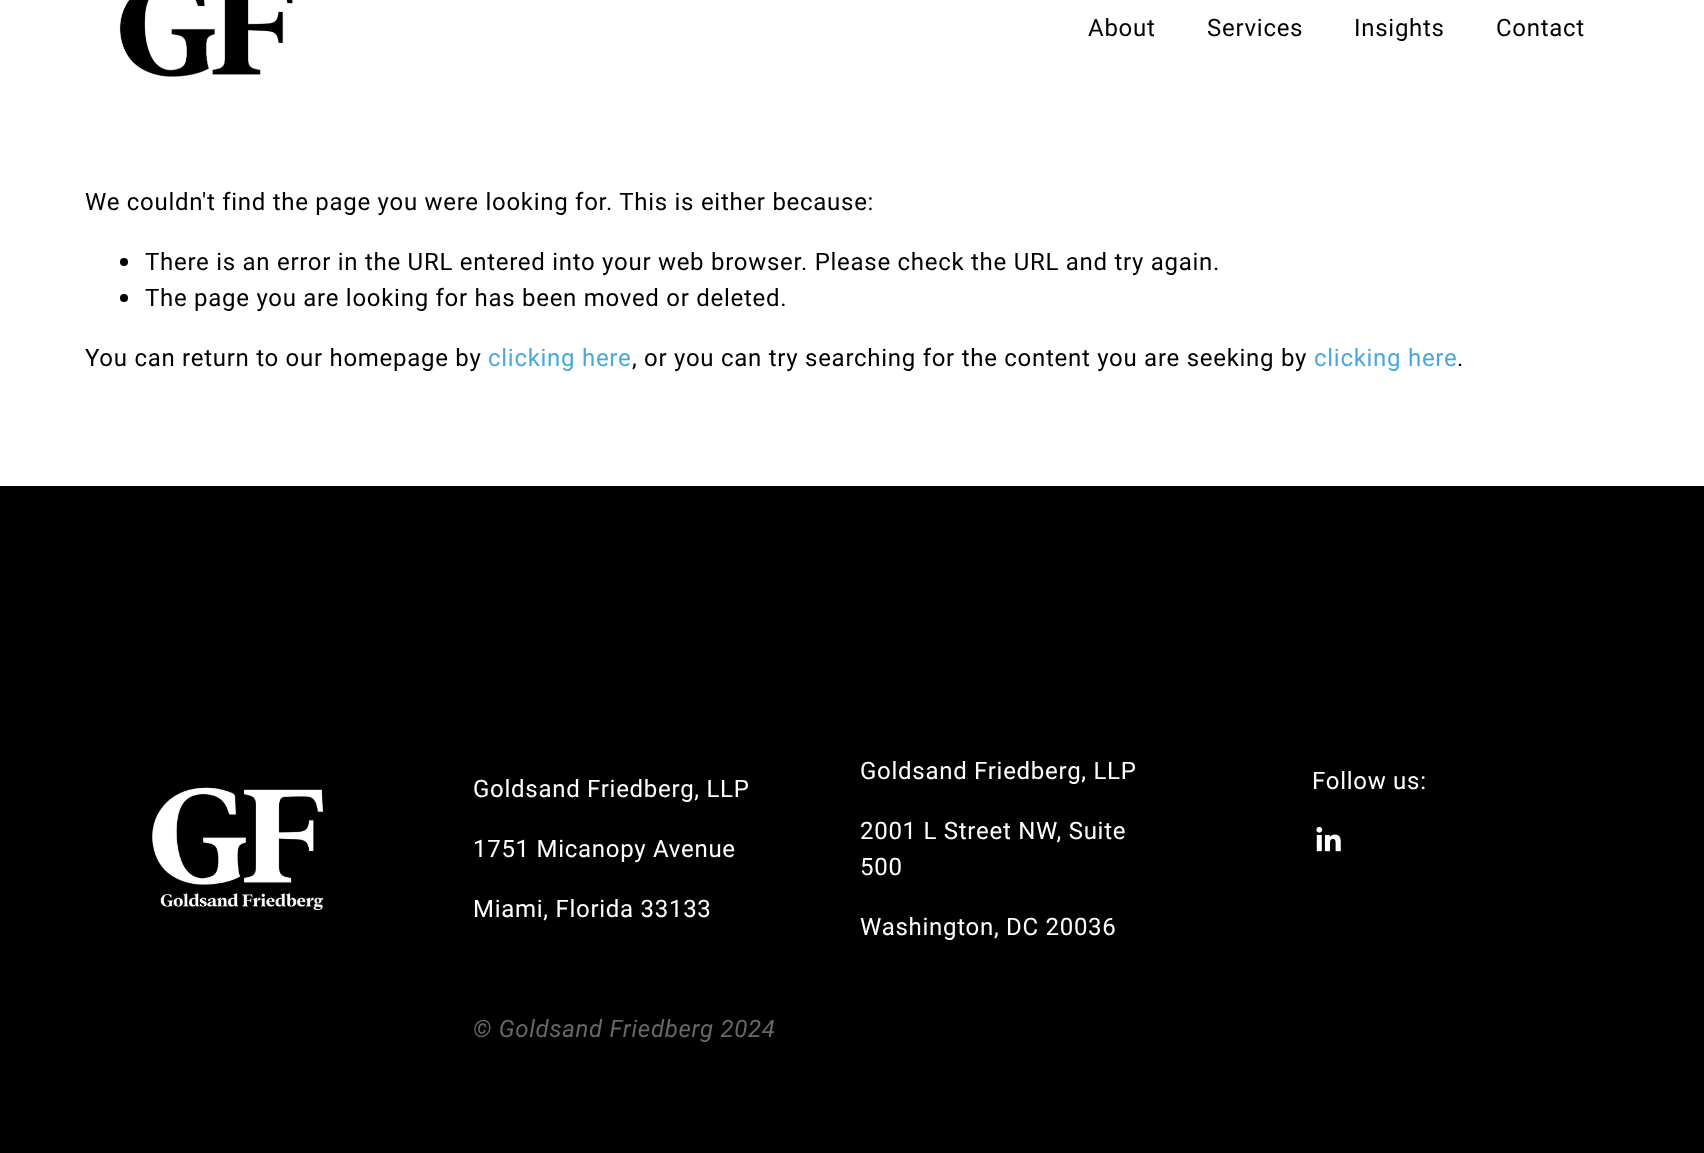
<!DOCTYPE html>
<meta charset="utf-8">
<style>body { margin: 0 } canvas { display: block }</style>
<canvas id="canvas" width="1704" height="1153"></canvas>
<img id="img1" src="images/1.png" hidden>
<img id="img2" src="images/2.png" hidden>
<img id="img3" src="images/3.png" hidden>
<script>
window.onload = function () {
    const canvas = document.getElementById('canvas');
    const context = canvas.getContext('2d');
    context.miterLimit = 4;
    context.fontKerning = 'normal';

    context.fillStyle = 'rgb(255, 255, 255)';
    context.fillRect(0, 0, 1704, 1153);
    context.drawImage(document.getElementById('img1'), 119, 0, 174, 77);
    context.fillStyle = 'rgb(0, 0, 0)';
    context.beginPath();
    context.arc(124, 262, 4, 0, 2 * Math.PI);
    context.fill();
    context.beginPath();
    context.arc(124, 298, 4, 0, 2 * Math.PI);
    context.fill();
    context.fillRect(0, 486, 1704, 667);
    context.drawImage(document.getElementById('img2'), 152, 787, 172, 124);
    context.drawImage(document.getElementById('img3'), 1316, 826, 25, 26);
    context.letterSpacing = '0.72px';
    context.font = '24px Roboto';
    context.fillText('About', 1088, 36);
    context.fillText('Services', 1207, 36);
    context.fillText('Insights', 1354, 36);
    context.fillText('Contact', 1496, 36);
    context.fillText('We couldn\'t find the page you were looking for. This is either because:', 85, 210);
    context.fillText('There is an error in the URL entered into your web browser. Please check the URL and try again.', 145, 270);
    context.fillText('The page you are looking for has been moved or deleted.', 145, 306);
    context.fillText('You can return to our homepage by', 85, 366);
    context.fillStyle = 'rgb(72, 169, 221)';
    context.fillText('clicking here', 488, 366);
    context.fillStyle = 'rgb(0, 0, 0)';
    context.fillText(', or you can try searching for the content you are seeking by', 632, 366);
    context.fillStyle = 'rgb(72, 169, 221)';
    context.fillText('clicking here', 1314, 366);
    context.fillStyle = 'rgb(0, 0, 0)';
    context.fillText('.', 1457, 366);
    context.fillStyle = 'rgb(255, 255, 255)';
    context.fillText('Goldsand Friedberg, LLP', 473, 797);
    context.fillText('1751 Micanopy Avenue', 473, 857);
    context.fillText('Miami, Florida 33133', 473, 917);
    context.fillText('Goldsand Friedberg, LLP', 860, 779);
    context.fillText('2001 L Street NW, Suite', 860, 839);
    context.fillText('500', 860, 875);
    context.fillText('Washington, DC 20036', 860, 935);
    context.fillText('Follow us:', 1312, 789);
    context.font = 'italic 24px Roboto';
    context.fillStyle = 'rgb(103, 103, 103)';
    context.fillText('© Goldsand Friedberg 2024', 473, 1037);
};
</script>
